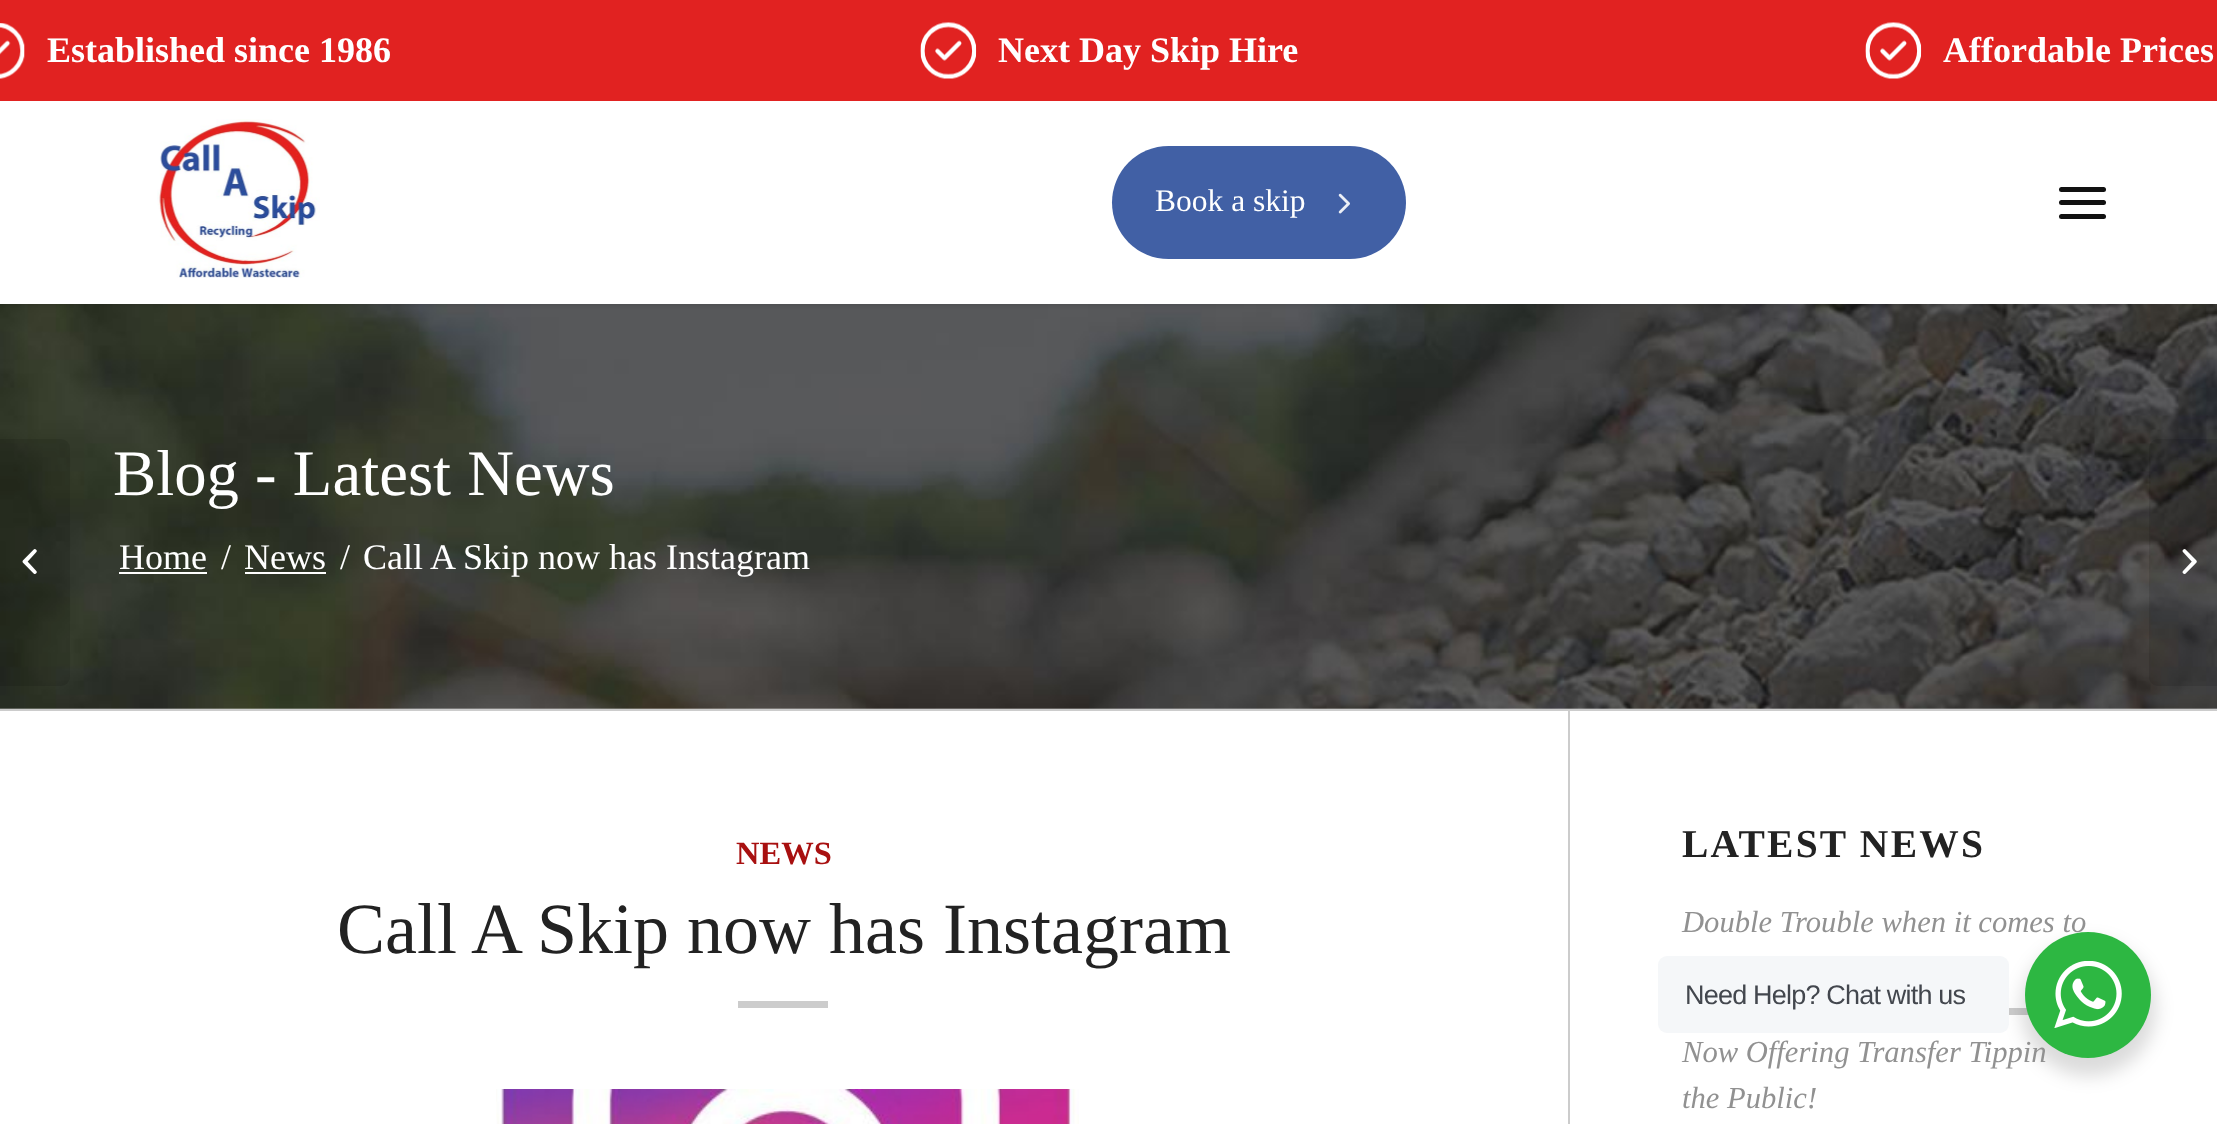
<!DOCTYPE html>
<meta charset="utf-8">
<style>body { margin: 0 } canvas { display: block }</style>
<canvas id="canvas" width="2217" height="1124"></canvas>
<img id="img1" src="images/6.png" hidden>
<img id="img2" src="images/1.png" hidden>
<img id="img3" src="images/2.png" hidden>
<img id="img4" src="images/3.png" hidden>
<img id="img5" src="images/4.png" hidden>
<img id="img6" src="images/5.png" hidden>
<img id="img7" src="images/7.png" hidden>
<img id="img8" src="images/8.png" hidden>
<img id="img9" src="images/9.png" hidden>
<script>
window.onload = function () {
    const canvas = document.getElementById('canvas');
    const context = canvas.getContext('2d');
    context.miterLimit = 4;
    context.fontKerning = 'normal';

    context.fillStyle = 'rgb(255, 255, 255)';
    context.fillRect(0, 0, 2217, 1124);
    context.drawImage(document.getElementById('img1'), 0, 304, 2217, 405);
    context.fillStyle = 'rgba(0, 0, 0, 0.1)';
    context.filter = 'blur(2px)';
    context.beginPath();
    context.rect(-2, -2, 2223, 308);
    context.fill();
    context.filter = 'none';
    context.fillStyle = 'rgb(225, 34, 33)';
    context.fillRect(0, 0, 2217, 101);
    context.drawImage(document.getElementById('img2'), 0, 23, 25, 56);
    context.drawImage(document.getElementById('img3'), 920, 22, 57, 57);
    context.drawImage(document.getElementById('img3'), 1865, 22, 57, 57);
    context.fillStyle = 'rgb(255, 255, 255)';
    context.fillRect(0, 101, 2217, 203);
    context.drawImage(document.getElementById('img4'), 157, 119, 163, 159);
    context.fillStyle = 'rgb(65, 96, 165)';
    context.beginPath();
    context.roundRect(1112, 146, 294, 113, 56.5);
    context.fill();
    context.drawImage(document.getElementById('img5'), 1338, 193, 12, 21);
    context.fillStyle = 'rgb(17, 17, 17)';
    context.beginPath();
    context.roundRect(2059, 200, 47, 5, 2.5);
    context.fill();
    context.beginPath();
    context.roundRect(2059, 187, 47, 5, 2.5);
    context.fill();
    context.beginPath();
    context.roundRect(2059, 214, 47, 5, 2.5);
    context.fill();
    context.fillStyle = 'rgba(0, 0, 0, 0.1)';
    context.beginPath();
    context.roundRect(0, 439, 70, 247, [0, 9, 9, 0]);
    context.fill();
    context.drawImage(document.getElementById('img6'), 22, 549, 15, 25);
    context.fillStyle = 'rgb(255, 255, 255)';
    context.fillRect(119, 572, 88, 2);
    context.fillRect(245, 572, 81, 2);
    context.fillStyle = 'rgb(204, 204, 204)';
    context.fillRect(0, 709, 2217, 2);
    context.fillRect(1568, 711, 2, 413);
    context.fillRect(738, 1001, 90, 7);
    context.drawImage(document.getElementById('img7'), 496, 1089, 583, 35);
    context.fillRect(2009, 1008, 20, 7);
    context.fillStyle = 'rgba(0, 0, 0, 0.1)';
    context.beginPath();
    context.moveTo(2158, 439);
    context.lineTo(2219, 439);
    context.lineTo(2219, 686);
    context.lineTo(2158, 686);
    context.bezierCurveTo(2153, 686, 2149, 682, 2149, 677);
    context.lineTo(2149, 448);
    context.bezierCurveTo(2149, 443, 2153, 439, 2158, 439);
    context.closePath();
    context.fill();
    context.drawImage(document.getElementById('img8'), 2182, 549, 15, 25);
    context.fillStyle = 'rgba(0, 0, 0, 0.14)';
    context.filter = 'blur(9px)';
    context.beginPath();
    context.roundRect(2021, 941, 135, 135, 67.5);
    context.fill();
    context.filter = 'none';
    context.fillStyle = 'rgb(245, 247, 249)';
    context.beginPath();
    context.roundRect(1658, 956, 351, 77, 9);
    context.fill();
    context.font = 'bold 36px Liberation Serif';
    context.fillStyle = 'rgb(255, 255, 255)';
    context.fillText('Established since 1986', 47, 62);
    context.fillText('Next Day Skip Hire', 998, 62);
    context.fillText('Affordable Prices', 1943, 62);
    context.font = '31.5px Liberation Serif';
    context.fillText('Book a skip', 1155, 211);
    context.font = '64.75px Liberation Serif';
    context.fillText('Blog - Latest News', 113, 495);
    context.font = '36px Liberation Serif';
    context.fillText('Home', 119, 569);
    context.fillText('/', 221, 569);
    context.fillText('News', 244, 569);
    context.fillText('/', 340, 569);
    context.fillText('Call A Skip now has Instagram', 363, 569);
    context.font = 'bold 32.5px Liberation Serif';
    context.fillStyle = 'rgb(168, 16, 16)';
    context.fillText('NEWS', 736, 864);
    context.font = '72px Liberation Serif';
    context.fillStyle = 'rgb(34, 34, 34)';
    context.fillText('Call A Skip now has Instagram', 337, 953);
    context.letterSpacing = '2.25px';
    context.font = 'bold 39.5px Liberation Serif';
    context.fillText('LATEST NEWS', 1682, 857);
    context.letterSpacing = '0px';
    context.font = 'italic 30.6px Liberation Serif';
    context.fillStyle = 'rgb(145, 145, 145)';
    context.fillText('Double Trouble when it comes to', 1682, 932);
    context.fillText('Now Offering Transfer Tippin', 1682, 1062);
    context.fillText('the Public!', 1682, 1108);
    context.letterSpacing = '-0.8px';
    context.font = '27px Liberation Sans';
    context.fillStyle = 'rgb(67, 71, 78)';
    context.fillText('Need Help? Chat with us', 1685, 1004);
    context.fillStyle = 'rgb(45, 183, 66)';
    context.beginPath();
    context.arc(2088, 995, 63, 0, 2 * Math.PI);
    context.fill();
    context.drawImage(document.getElementById('img9'), 2054, 961, 68, 67);
};
</script>
